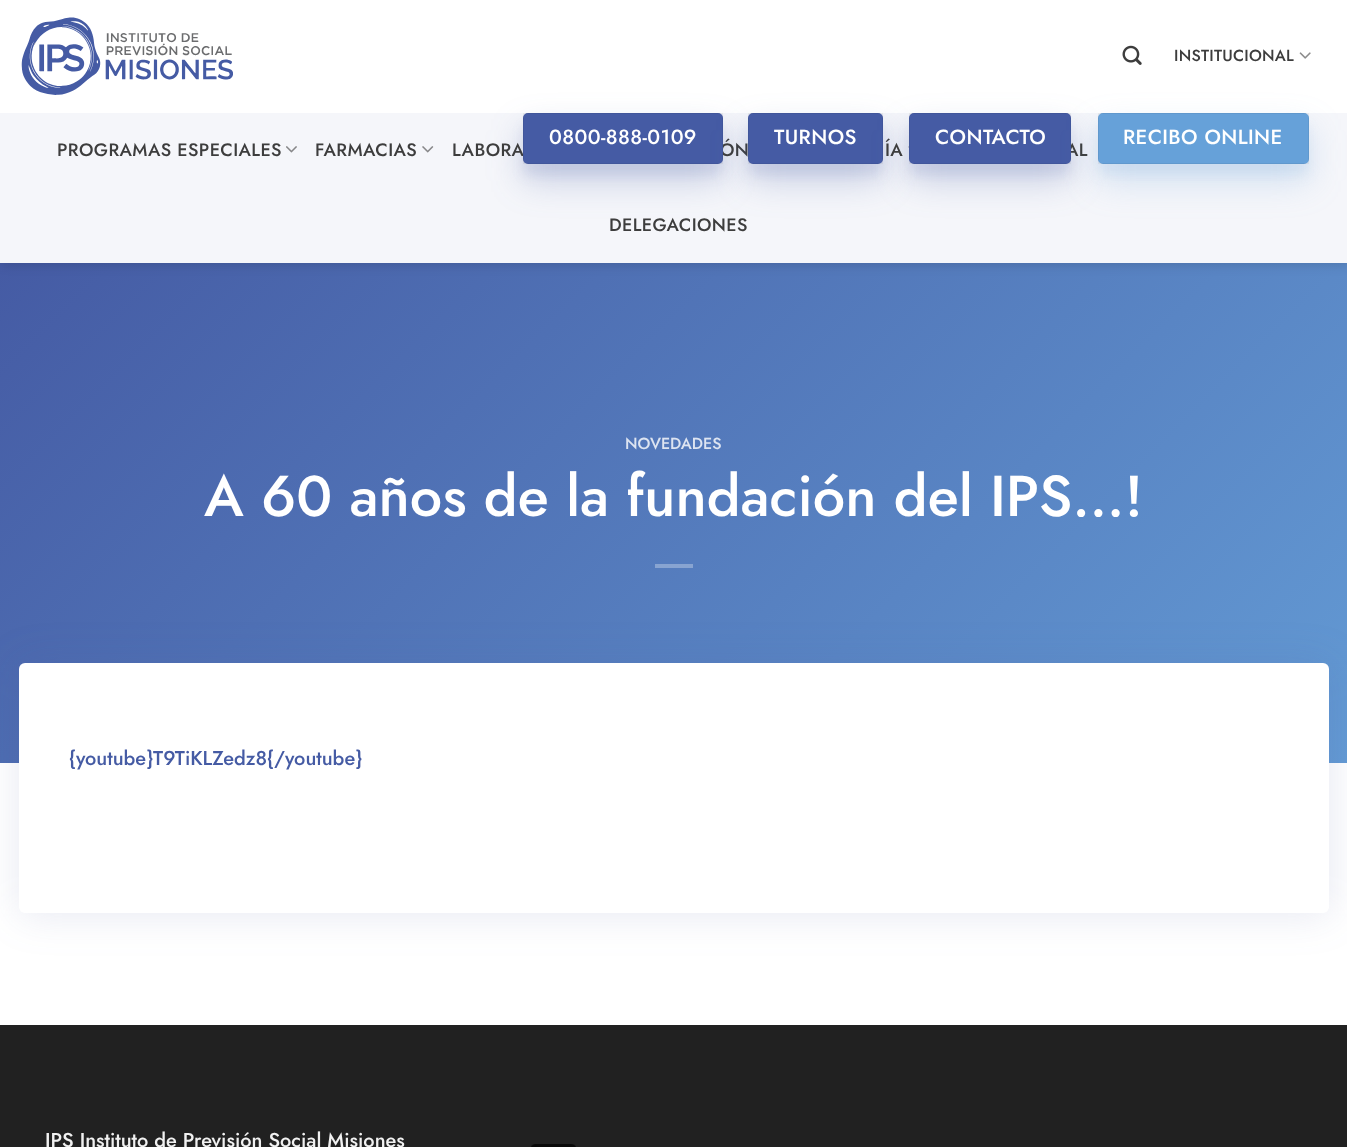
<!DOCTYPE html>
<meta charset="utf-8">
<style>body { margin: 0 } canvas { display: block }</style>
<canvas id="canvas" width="1347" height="1147"></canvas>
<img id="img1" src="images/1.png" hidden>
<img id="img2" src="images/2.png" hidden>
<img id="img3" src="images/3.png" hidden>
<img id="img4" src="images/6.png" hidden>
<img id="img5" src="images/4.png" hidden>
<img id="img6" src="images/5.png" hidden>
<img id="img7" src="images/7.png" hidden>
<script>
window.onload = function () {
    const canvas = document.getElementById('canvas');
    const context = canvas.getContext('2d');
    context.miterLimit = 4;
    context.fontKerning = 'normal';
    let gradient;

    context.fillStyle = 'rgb(255, 255, 255)';
    context.fillRect(0, 0, 1347, 1147);
    gradient = context.createLinearGradient(212, 51, 1136, 974);
    gradient.addColorStop(0, 'rgb(69, 91, 164)');
    gradient.addColorStop(1, 'rgb(99, 154, 212)');
    context.fillStyle = gradient;
    context.fillRect(0, 263, 1347, 500);
    context.fillStyle = 'rgba(0, 0, 0, 0.15)';
    context.filter = 'blur(6px)';
    context.beginPath();
    context.rect(1, 1, 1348, 263);
    context.fill();
    context.filter = 'none';
    context.fillStyle = 'rgb(255, 255, 255)';
    context.fillRect(0, 0, 1347, 113);
    context.drawImage(document.getElementById('img1'), 21, 17, 212, 78);
    context.drawImage(document.getElementById('img2'), 1122, 45, 20, 20);
    context.drawImage(document.getElementById('img3'), 1299, 52, 12, 7);
    context.fillStyle = 'rgb(245, 246, 250)';
    context.fillRect(0, 113, 1347, 150);
    context.fillStyle = 'rgba(69, 91, 164, 0.1)';
    context.filter = 'blur(6px)';
    context.beginPath();
    context.roundRect(523, 125, 200, 51, 5);
    context.fill();
    context.filter = 'none';
    context.fillStyle = 'rgba(69, 91, 164, 0.25)';
    context.filter = 'blur(17.5px)';
    context.beginPath();
    context.roundRect(523, 130, 200, 51, 5);
    context.fill();
    context.filter = 'none';
    context.fillStyle = 'rgba(69, 91, 164, 0.1)';
    context.filter = 'blur(6px)';
    context.beginPath();
    context.roundRect(748, 125, 135, 51, 5);
    context.fill();
    context.filter = 'none';
    context.drawImage(document.getElementById('img4'), 908, 146, 1, 2);
    context.filter = 'blur(6px)';
    context.beginPath();
    context.roundRect(909, 125, 162, 51, 5);
    context.fill();
    context.filter = 'none';
    context.fillStyle = 'rgba(102, 161, 217, 0.1)';
    context.filter = 'blur(6px)';
    context.beginPath();
    context.roundRect(1098, 125, 211, 51, 5);
    context.fill();
    context.filter = 'none';
    context.drawImage(document.getElementById('img5'), 286, 146, 11, 7);
    context.drawImage(document.getElementById('img6'), 422, 146, 12, 7);
    context.fillStyle = 'rgb(136, 164, 209)';
    context.fillRect(655, 564, 38, 4);
    context.fillStyle = 'rgba(83, 95, 159, 0.15)';
    context.filter = 'blur(20.5px)';
    context.beginPath();
    context.roundRect(20, 664, 1310, 250, 6);
    context.fill();
    context.filter = 'none';
    context.fillStyle = 'rgb(255, 255, 255)';
    context.beginPath();
    context.roundRect(19, 663, 1310, 250, 6);
    context.fill();
    context.fillStyle = 'rgb(33, 33, 33)';
    context.fillRect(0, 1025, 1347, 122);
    context.drawImage(document.getElementById('img7'), 531, 1144, 45, 3);
    context.letterSpacing = '0.25px';
    context.font = '500 16px Jost';
    context.fillStyle = 'rgb(61, 61, 61)';
    context.fillText('INSTITUCIONAL', 1174, 61);
    context.letterSpacing = '0.4px';
    context.font = '500 18px Jost';
    context.fillText('PROGRAMAS ESPECIALES', 57, 156);
    context.fillText('FARMACIAS', 315, 156);
    context.fillText('LABORA', 452, 156);
    context.fillText('ÓN', 720, 156);
    context.fillStyle = 'rgb(69, 91, 164)';
    context.beginPath();
    context.roundRect(523, 113, 200, 51, 5);
    context.fill();
    context.strokeStyle = 'rgba(0, 0, 0, 0.05)';
    context.strokeRect(523.5, 113.5, 199, 50);
    context.fillStyle = 'rgba(69, 91, 164, 0.25)';
    context.filter = 'blur(17.5px)';
    context.beginPath();
    context.roundRect(748, 130, 135, 51, 5);
    context.fill();
    context.filter = 'none';
    context.fillStyle = 'rgb(69, 91, 164)';
    context.beginPath();
    context.roundRect(748, 113, 135, 51, 5);
    context.fill();
    context.strokeRect(748.5, 113.5, 134, 50);
    context.fillStyle = 'rgba(69, 91, 164, 0.25)';
    context.filter = 'blur(17.5px)';
    context.beginPath();
    context.roundRect(909, 130, 162, 51, 5);
    context.fill();
    context.filter = 'none';
    context.font = '500 20.5px Jost';
    context.fillStyle = 'rgb(255, 255, 255)';
    context.fillText('TURNOS', 774, 144);
    context.fillText('0800-888-0109', 549, 144);
    context.font = '500 18px Jost';
    context.fillStyle = 'rgb(61, 61, 61)';
    context.fillText('ÍA', 885, 156);
    context.fillText('AL', 1066, 156);
    context.fillStyle = 'rgb(69, 91, 164)';
    context.beginPath();
    context.roundRect(909, 113, 162, 51, 5);
    context.fill();
    context.strokeRect(909.5, 113.5, 161, 50);
    context.fillStyle = 'rgba(102, 161, 217, 0.25)';
    context.filter = 'blur(17.5px)';
    context.beginPath();
    context.roundRect(1098, 130, 211, 51, 5);
    context.fill();
    context.filter = 'none';
    context.fillStyle = 'rgb(102, 161, 217)';
    context.beginPath();
    context.roundRect(1098, 113, 211, 51, 5);
    context.fill();
    context.strokeRect(1098.5, 113.5, 210, 50);
    context.font = '500 20.5px Jost';
    context.fillStyle = 'rgb(255, 255, 255)';
    context.fillText('RECIBO ONLINE', 1123, 144);
    context.fillText('CONTACTO', 935, 144);
    context.font = '500 18px Jost';
    context.fillStyle = 'rgb(61, 61, 61)';
    context.fillText('DELEGACIONES', 609, 231);
    context.letterSpacing = '0px';
    context.font = '500 16px Jost';
    context.fillStyle = 'rgb(221, 228, 241)';
    context.fillText('NOVEDADES', 625, 449);
    context.font = '500 57.5px Jost';
    context.fillStyle = 'rgb(255, 255, 255)';
    context.fillText('A 60 años de la fundación del IPS…!', 204, 516);
    context.font = '500 20px Jost';
    context.fillStyle = 'rgb(69, 91, 164)';
    context.fillText('{youtube}T9TiKLZedz8{/youtube}', 69, 765);
    context.fillStyle = 'rgb(241, 241, 241)';
    context.fillText('IPS Instituto de Previsión Social Misiones', 45, 1147);
};
</script>
